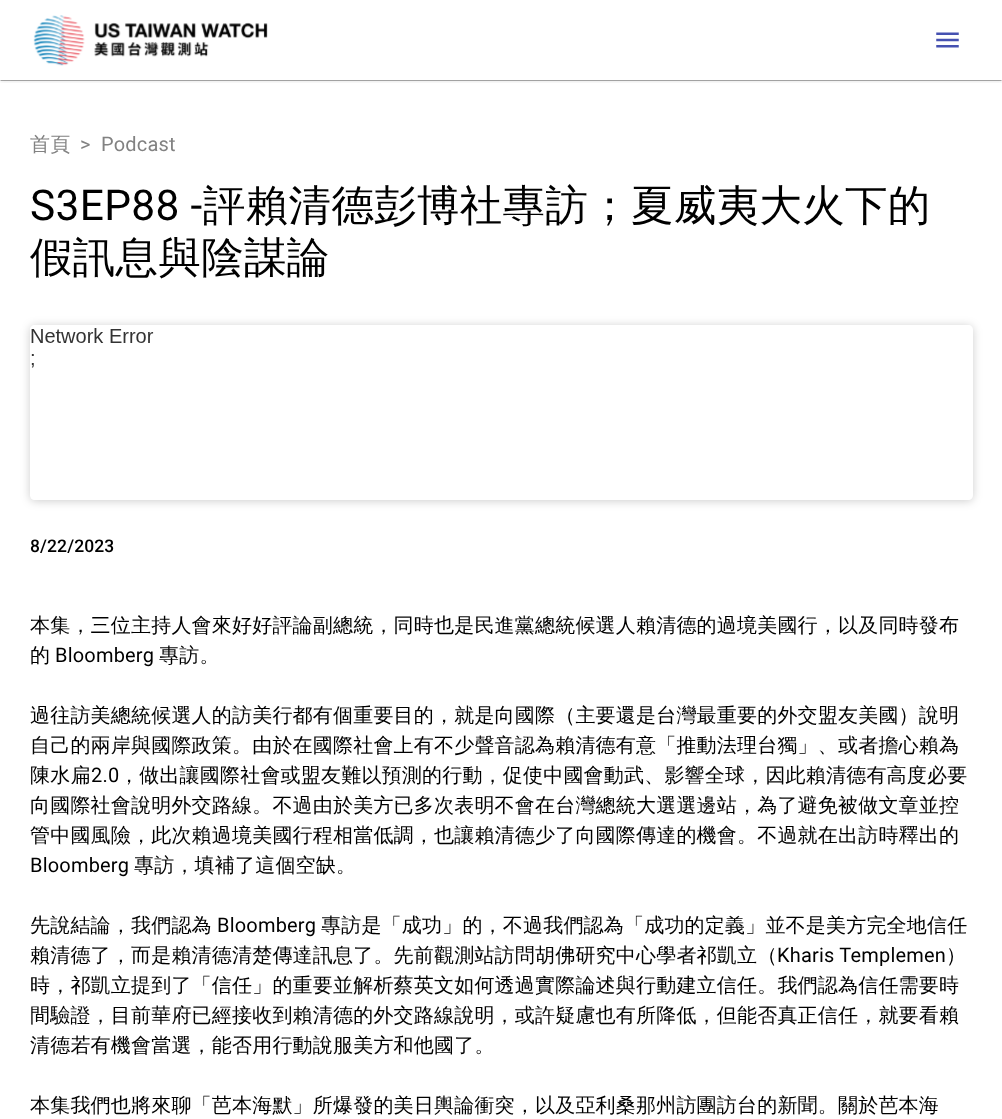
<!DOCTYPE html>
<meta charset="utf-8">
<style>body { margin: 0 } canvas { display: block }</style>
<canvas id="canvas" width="1002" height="1119"></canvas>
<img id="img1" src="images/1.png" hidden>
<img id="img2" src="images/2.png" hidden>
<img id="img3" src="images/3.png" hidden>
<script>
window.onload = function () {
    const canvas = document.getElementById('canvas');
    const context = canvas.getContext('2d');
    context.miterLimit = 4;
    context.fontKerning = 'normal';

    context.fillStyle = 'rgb(255, 255, 255)';
    context.fillRect(0, 0, 1002, 1119);
    context.save();
    context.beginPath();
    context.rect(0, 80, 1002, 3);
    context.clip();
    context.fillStyle = 'rgba(0, 0, 0, 0.12)';
    context.filter = 'blur(2px)';
    context.beginPath();
    context.rect(0, 1, 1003, 80);
    context.fill();
    context.filter = 'none';
    context.restore();
    context.save();
    context.beginPath();
    context.rect(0, 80, 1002, 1);
    context.clip();
    context.fillStyle = 'rgba(0, 0, 0, 0.14)';
    context.filter = 'blur(0.5px)';
    context.beginPath();
    context.rect(0, 1, 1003, 80);
    context.fill();
    context.filter = 'none';
    context.restore();
    context.save();
    context.beginPath();
    context.rect(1, 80, 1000, 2);
    context.clip();
    context.fillStyle = 'rgba(0, 0, 0, 0.2)';
    context.filter = 'blur(0.5px)';
    context.beginPath();
    context.rect(1, 4, 1000, 77);
    context.fill();
    context.filter = 'none';
    context.restore();
    context.drawImage(document.getElementById('img1'), 33, 15, 235, 51);
    context.drawImage(document.getElementById('img2'), 936, 32, 23, 16);
    context.save();
    context.beginPath();
    context.moveTo(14, 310);
    context.lineTo(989, 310);
    context.lineTo(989, 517);
    context.lineTo(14, 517);
    context.closePath();
    context.moveTo(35, 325);
    context.lineTo(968, 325);
    context.bezierCurveTo(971, 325, 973, 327, 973, 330);
    context.lineTo(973, 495);
    context.bezierCurveTo(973, 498, 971, 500, 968, 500);
    context.lineTo(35, 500);
    context.bezierCurveTo(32, 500, 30, 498, 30, 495);
    context.lineTo(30, 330);
    context.bezierCurveTo(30, 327, 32, 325, 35, 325);
    context.closePath();
    context.clip('evenodd');
    context.fillStyle = 'rgba(0, 0, 0, 0.2)';
    context.filter = 'blur(5px)';
    context.beginPath();
    context.roundRect(30, 326, 943, 175, 5);
    context.fill();
    context.filter = 'none';
    context.restore();
    context.drawImage(document.getElementById('img3'), 31, 328, 123, 40);
    context.letterSpacing = '0.2px';
    context.font = '500 20px WenQuanYi Zen Hei';
    context.fillStyle = 'rgb(130, 130, 130)';
    context.fillText('首頁', 30, 151);
    context.font = '20px Roboto';
    context.fillText('>', 80, 151);
    context.fillText('Podcast', 101, 151);
    context.letterSpacing = '0.3px';
    context.font = '42.5px Roboto';
    context.fillStyle = 'rgb(0, 0, 0)';
    context.fillText('S3EP88 -', 30, 220);
    context.font = '500 42.5px WenQuanYi Zen Hei';
    context.fillText('評賴清德彭博社專訪；夏威夷大火下的', 203, 220);
    context.fillText('假訊息與陰謀論', 30, 272);
    context.letterSpacing = '0.1px';
    context.font = '500 17.5px Roboto';
    context.fillText('8/22/2023', 30, 552);
    context.letterSpacing = '0.2px';
    context.font = '500 20px WenQuanYi Zen Hei';
    context.fillText('本集，三位主持人會來好好評論副總統，同時也是民進黨總統候選人賴清德的過境美國行，以及同時發布', 30, 632);
    context.fillText('的', 30, 662);
    context.font = '20px Roboto';
    context.fillText('Bloomberg', 55, 662);
    context.font = '500 20px WenQuanYi Zen Hei';
    context.fillText('專訪。', 159, 662);
    context.fillText('過往訪美總統候選人的訪美行都有個重要目的，就是向國際（主要還是台灣最重要的外交盟友美國）說明', 30, 722);
    context.fillText('自己的兩岸與國際政策。由於在國際社會上有不少聲音認為賴清德有意「推動法理台獨」、或者擔心賴為', 30, 752);
    context.fillText('陳水扁', 30, 782);
    context.font = '20px Roboto';
    context.fillText('2.0', 91, 782);
    context.font = '500 20px WenQuanYi Zen Hei';
    context.fillText('，做出讓國際社會或盟友難以預測的行動，促使中國會動武、影響全球，因此賴清德有高度必要', 119, 782);
    context.fillText('向國際社會說明外交路線。不過由於美方已多次表明不會在台灣總統大選選邊站，為了避免被做文章並控', 30, 812);
    context.fillText('管中國風險，此次賴過境美國行程相當低調，也讓賴清德少了向國際傳達的機會。不過就在出訪時釋出的', 30, 842);
    context.font = '20px Roboto';
    context.fillText('Bloomberg', 30, 872);
    context.font = '500 20px WenQuanYi Zen Hei';
    context.fillText('專訪，填補了這個空缺。', 134, 872);
    context.fillText('先說結論，我們認為', 30, 932);
    context.font = '20px Roboto';
    context.fillText('Bloomberg', 217, 932);
    context.font = '500 20px WenQuanYi Zen Hei';
    context.fillText('專訪是「成功」的，不過我們認為「成功的定義」並不是美方完全地信任', 321, 932);
    context.fillText('賴清德了，而是賴清德清楚傳達訊息了。先前觀測站訪問胡佛研究中心學者祁凱立（', 30, 962);
    context.font = '20px Roboto';
    context.fillText('Kharis Templemen', 777, 962);
    context.font = '500 20px WenQuanYi Zen Hei';
    context.fillText('）', 946, 962);
    context.fillText('時，祁凱立提到了「信任」的重要並解析蔡英文如何透過實際論述與行動建立信任。我們認為信任需要時', 30, 992);
    context.fillText('間驗證，目前華府已經接收到賴清德的外交路線說明，或許疑慮也有所降低，但能否真正信任，就要看賴', 30, 1022);
    context.fillText('清德若有機會當選，能否用行動說服美方和他國了。', 30, 1052);
    context.fillText('本集我們也將來聊「芭本海默」所爆發的美日輿論衝突，以及亞利桑那州訪團訪台的新聞。關於芭本海', 30, 1112);
};
</script>
